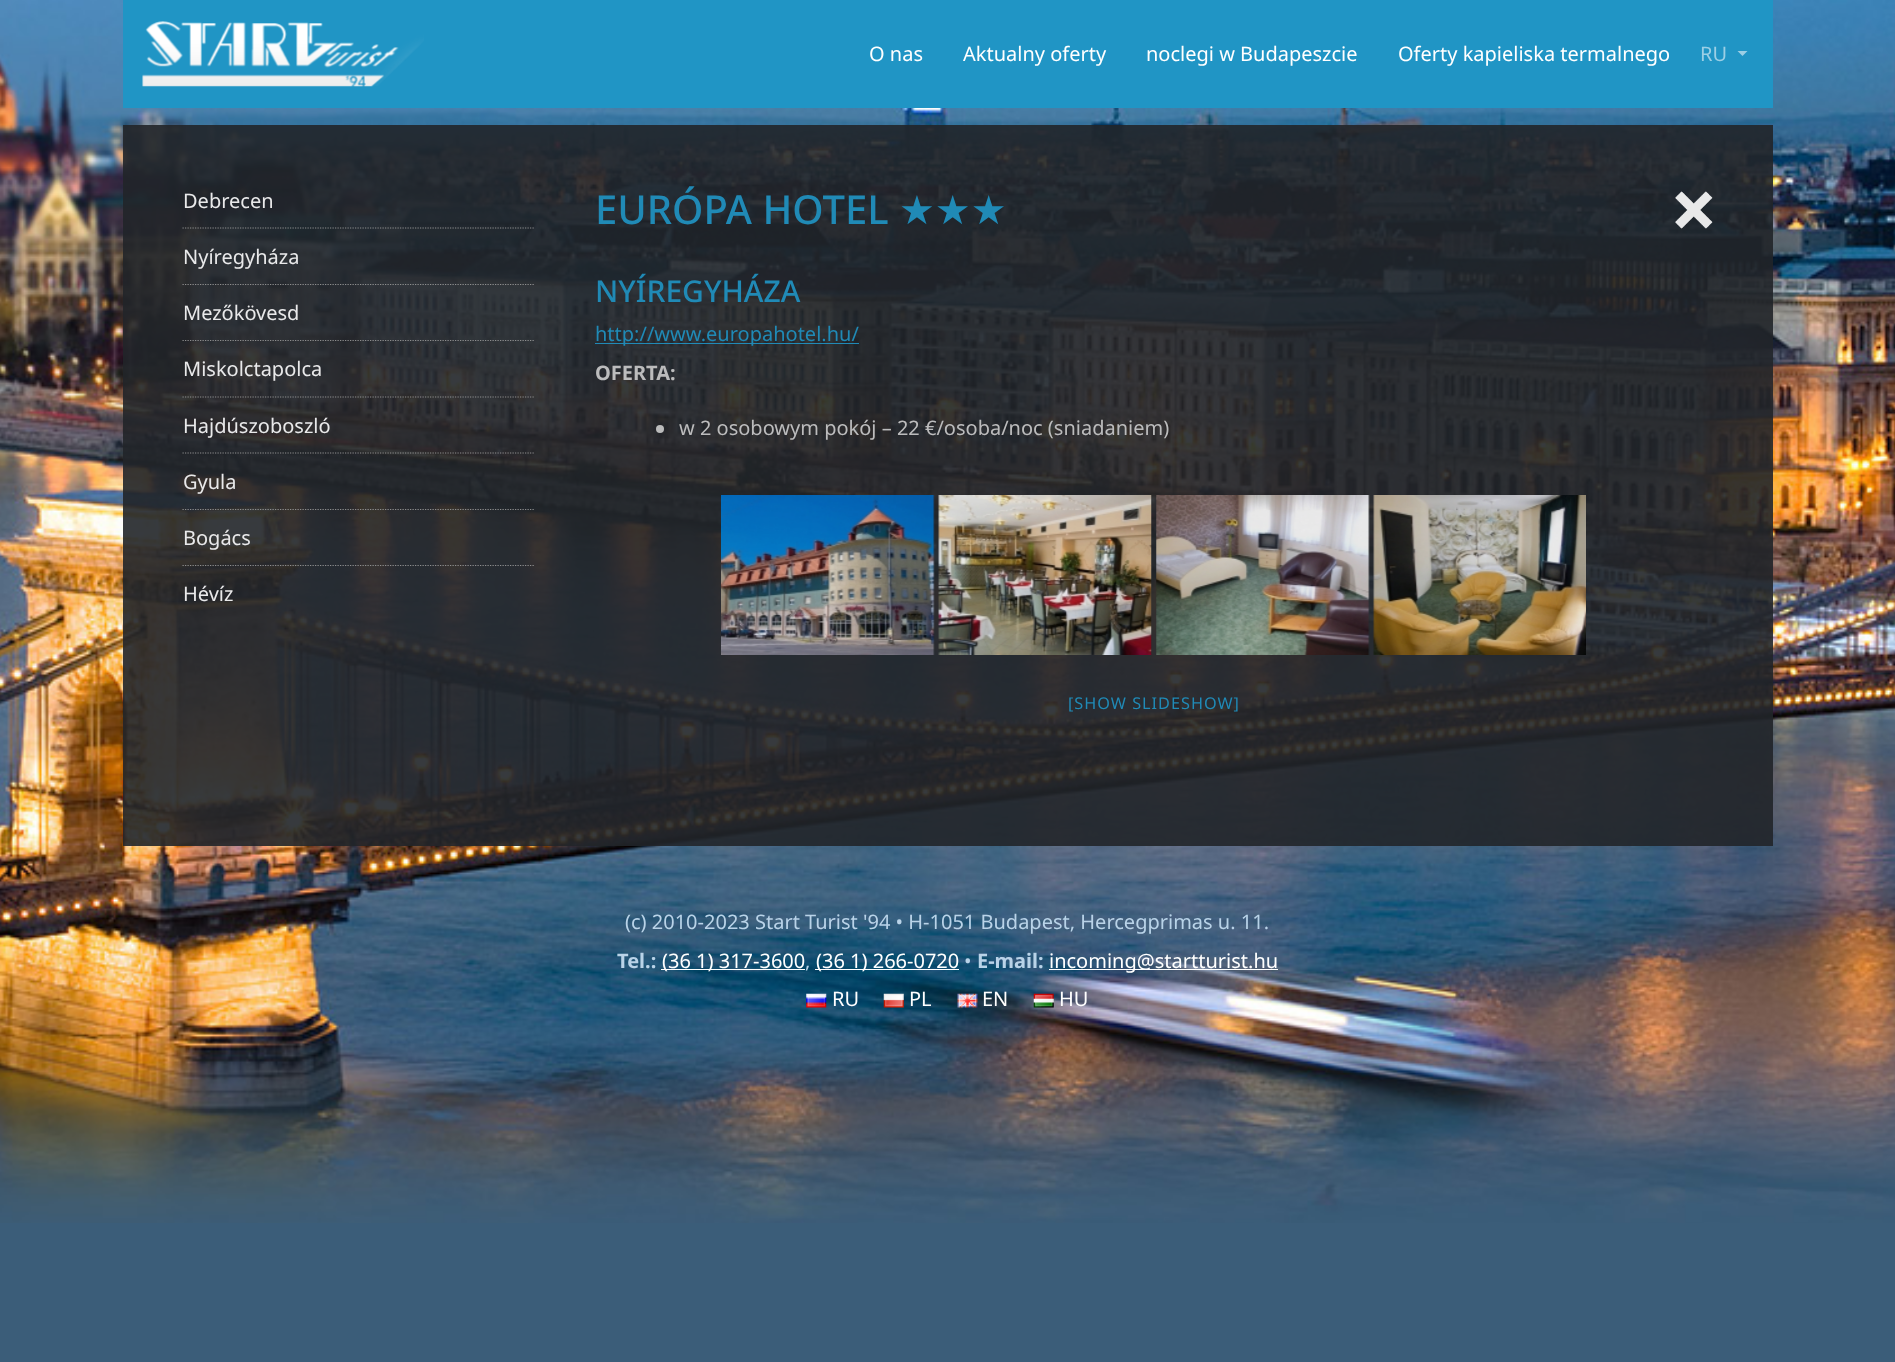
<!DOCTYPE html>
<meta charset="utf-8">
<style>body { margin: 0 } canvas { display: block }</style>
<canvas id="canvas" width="1895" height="1362"></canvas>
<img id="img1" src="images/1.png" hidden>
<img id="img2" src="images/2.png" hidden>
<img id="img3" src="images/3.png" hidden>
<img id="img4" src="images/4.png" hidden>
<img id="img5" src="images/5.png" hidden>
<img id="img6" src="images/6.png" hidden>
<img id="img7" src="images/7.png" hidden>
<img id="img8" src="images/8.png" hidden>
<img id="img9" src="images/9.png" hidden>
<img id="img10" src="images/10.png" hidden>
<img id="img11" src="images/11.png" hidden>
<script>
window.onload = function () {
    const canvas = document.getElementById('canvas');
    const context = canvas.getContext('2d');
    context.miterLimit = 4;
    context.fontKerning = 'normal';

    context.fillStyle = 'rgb(59, 93, 121)';
    context.fillRect(0, 0, 1895, 1362);
    context.drawImage(document.getElementById('img1'), 0, 0, 1895, 1223);
    context.fillStyle = 'rgb(32, 149, 197)';
    context.fillRect(123, 0, 1650, 108);
    context.drawImage(document.getElementById('img2'), 142, 21, 282, 66);
    context.fillStyle = 'rgb(155, 207, 229)';
    context.beginPath();
    context.moveTo(1737.5, 51);
    context.lineTo(1747.5, 51);
    context.lineTo(1742.5, 56);
    context.closePath();
    context.fill();
    context.fillStyle = 'rgba(33, 37, 41, 0.9)';
    context.fillRect(123, 125, 1650, 721);
    context.beginPath();
    context.moveTo(182.5, 228);
    context.lineTo(535, 228);
    context.strokeStyle = 'rgba(153, 153, 153, 0.9)';
    context.lineWidth = 1.2;
    context.setLineDash([1.25, 1.25]);
    context.stroke();
    context.beginPath();
    context.moveTo(182.5, 284.5);
    context.lineTo(535, 284.5);
    context.stroke();
    context.beginPath();
    context.moveTo(182.5, 340.5);
    context.lineTo(535, 340.5);
    context.stroke();
    context.beginPath();
    context.moveTo(182.5, 397);
    context.lineTo(535, 397);
    context.stroke();
    context.beginPath();
    context.moveTo(182.5, 453);
    context.lineTo(535, 453);
    context.stroke();
    context.beginPath();
    context.moveTo(182.5, 509.5);
    context.lineTo(535, 509.5);
    context.stroke();
    context.beginPath();
    context.moveTo(182.5, 565.5);
    context.lineTo(535, 565.5);
    context.stroke();
    context.drawImage(document.getElementById('img3'), 1675, 191, 38, 38);
    context.fillStyle = 'rgba(32, 149, 197, 0.9)';
    context.fillRect(595, 343, 264, 1);
    context.fillStyle = 'rgba(204, 204, 204, 0.9)';
    context.beginPath();
    context.arc(660, 429, 4, 0, 2 * Math.PI);
    context.fill();
    context.drawImage(document.getElementById('img4'), 721, 495, 214, 160);
    context.drawImage(document.getElementById('img5'), 938, 495, 214, 160);
    context.drawImage(document.getElementById('img6'), 1156, 495, 214, 160);
    context.drawImage(document.getElementById('img7'), 1373, 495, 213, 160);
    context.fillStyle = 'rgb(255, 255, 255)';
    context.fillRect(661, 969, 144, 1);
    context.fillRect(815, 969, 144, 1);
    context.fillRect(1049, 969, 229, 1);
    context.drawImage(document.getElementById('img8'), 806, 993, 21, 15);
    context.drawImage(document.getElementById('img9'), 883, 993, 21, 15);
    context.drawImage(document.getElementById('img10'), 957, 993, 21, 15);
    context.drawImage(document.getElementById('img11'), 1033, 993, 21, 15);
    context.font = '20px Noto Sans';
    context.fillText('O nas', 869, 61);
    context.fillText('Aktualny oferty', 963, 61);
    context.fillText('noclegi w Budapeszcie', 1146, 61);
    context.fillText('Oferty kapieliska termalnego', 1398, 61);
    context.fillStyle = 'rgb(155, 207, 229)';
    context.fillText('RU', 1700, 61);
    context.fillStyle = 'rgb(233, 233, 234)';
    context.fillText('Debrecen', 183, 208);
    context.fillText('Nyíregyháza', 183, 264);
    context.fillText('Mezőkövesd', 183, 320);
    context.fillText('Miskolctapolca', 183, 376);
    context.fillText('Hajdúszoboszló', 183, 433);
    context.fillText('Gyula', 183, 489);
    context.fillText('Bogács', 183, 545);
    context.fillText('Hévíz', 183, 601);
    context.font = '500 40px Noto Sans';
    context.fillStyle = 'rgb(32, 138, 182)';
    context.fillText('EURÓPA HOTEL', 595, 224);
    context.font = '40px DejaVu Sans';
    context.fillText('★★★', 899, 224);
    context.font = '500 30px Noto Sans';
    context.fillText('NYÍREGYHÁZA', 595, 302);
    context.font = '20px Noto Sans';
    context.fillText('http://www.europahotel.hu/', 595, 341);
    context.font = 'bold 20px Noto Sans';
    context.fillStyle = 'rgb(188, 188, 189)';
    context.fillText('OFERTA:', 595, 380);
    context.font = '20px Noto Sans';
    context.fillText('w 2 osobowym pokój – 22 €/osoba/noc (sniadaniem)', 679, 435);
    context.letterSpacing = '1px';
    context.font = '16.25px Noto Sans';
    context.fillStyle = 'rgb(32, 138, 182)';
    context.fillText('[SHOW SLIDESHOW]', 1068, 709);
    context.letterSpacing = '0px';
    context.font = '20px Noto Sans';
    context.fillStyle = 'rgb(185, 211, 232)';
    context.fillText('(c) 2010-2023 Start Turist \'94 • H-1051 Budapest, Hercegprimas u. 11.', 625, 929);
    context.font = 'bold 20px Noto Sans';
    context.fillText('Tel.:', 617, 968);
    context.font = '20px Noto Sans';
    context.fillStyle = 'rgb(255, 255, 255)';
    context.fillText('(36 1) 317-3600', 662, 968);
    context.fillText('(36 1) 266-0720', 816, 968);
    context.fillStyle = 'rgb(185, 211, 232)';
    context.fillText('•', 964, 968);
    context.font = 'bold 20px Noto Sans';
    context.fillText('E-mail:', 977, 968);
    context.font = '20px Noto Sans';
    context.fillStyle = 'rgb(255, 255, 255)';
    context.fillText('incoming@startturist.hu', 1049, 968);
    context.fillStyle = 'rgb(185, 211, 232)';
    context.fillText(',', 805, 968);
    context.fillStyle = 'rgb(255, 255, 255)';
    context.fillText('RU', 832, 1006);
    context.fillText('PL', 909, 1006);
    context.fillText('EN', 982, 1006);
    context.fillText('HU', 1059, 1006);
};
</script>
